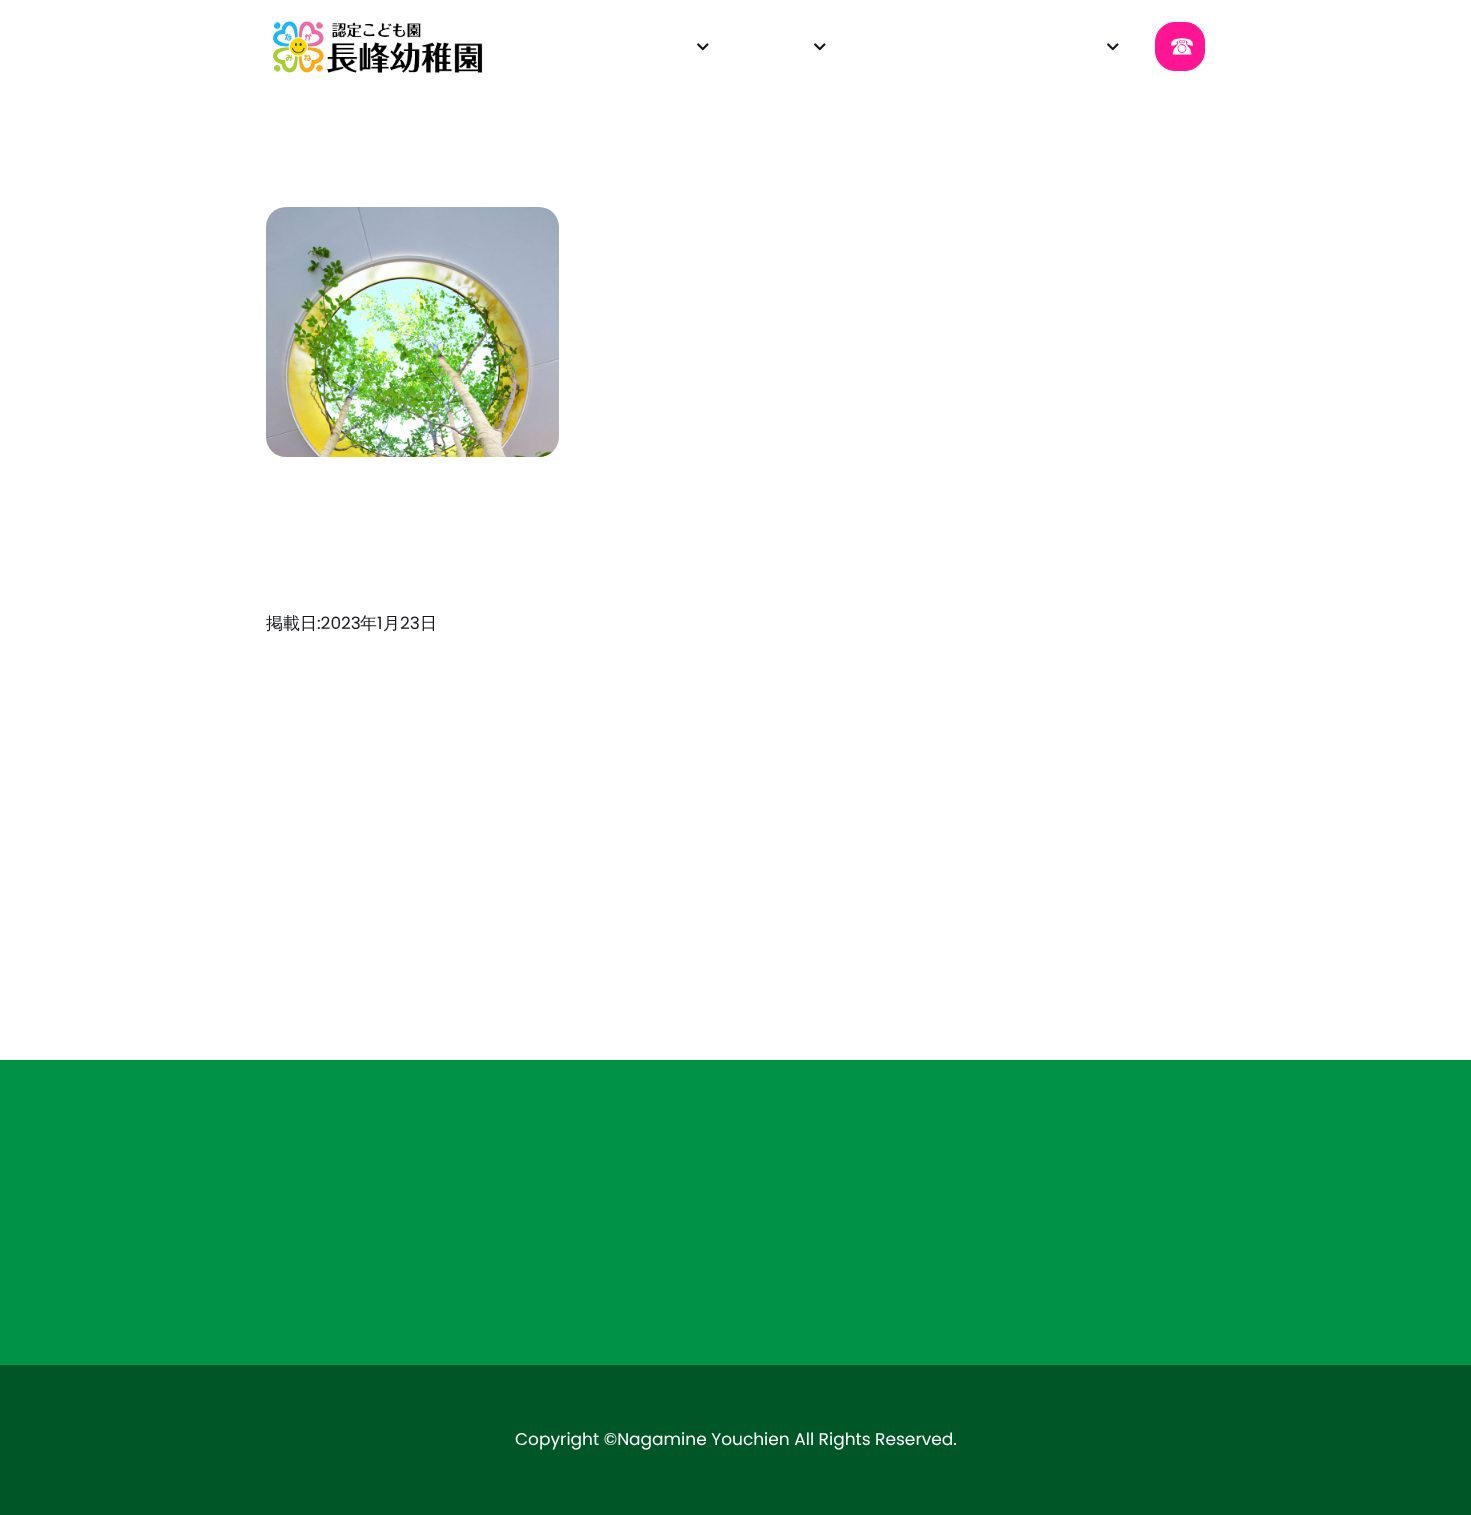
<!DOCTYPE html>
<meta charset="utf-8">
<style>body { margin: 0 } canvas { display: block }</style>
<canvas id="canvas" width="1471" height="1515"></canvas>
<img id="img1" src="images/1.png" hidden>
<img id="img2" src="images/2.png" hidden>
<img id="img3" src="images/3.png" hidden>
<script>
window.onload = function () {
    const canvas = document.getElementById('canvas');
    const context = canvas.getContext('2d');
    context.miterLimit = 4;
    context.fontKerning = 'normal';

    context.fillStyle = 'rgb(255, 255, 255)';
    context.fillRect(0, 0, 1471, 1515);
    context.drawImage(document.getElementById('img1'), 273, 21, 210, 52);
    context.drawImage(document.getElementById('img2'), 697, 43, 12, 8);
    context.drawImage(document.getElementById('img2'), 814, 43, 12, 8);
    context.drawImage(document.getElementById('img2'), 1107, 43, 12, 8);
    context.fillStyle = 'rgb(255, 20, 147)';
    context.beginPath();
    context.roundRect(1155.5, 22.5, 49, 48, 19.5);
    context.fill();
    context.strokeStyle = 'rgb(255, 20, 147)';
    context.stroke();
    context.drawImage(document.getElementById('img3'), 266, 207, 293, 250);
    context.fillStyle = 'rgb(0, 146, 69)';
    context.fillRect(0, 1060, 1471, 305);
    context.fillStyle = 'rgb(0, 86, 39)';
    context.fillRect(0, 1365, 1471, 150);
    context.font = '500 26px WenQuanYi Zen Hei';
    context.fillStyle = 'rgb(255, 255, 255)';
    context.fillText('☎︎', 1169, 55);
    context.font = '500 17px WenQuanYi Zen Hei';
    context.fillStyle = 'rgb(20, 23, 28)';
    context.fillText('掲載日', 266, 629);
    context.font = '17px Poppins';
    context.fillText(':2023', 317, 629);
    context.font = '500 17px WenQuanYi Zen Hei';
    context.fillText('年', 360, 629);
    context.font = '17px Poppins';
    context.fillText('1', 377, 629);
    context.font = '500 17px WenQuanYi Zen Hei';
    context.fillText('月', 383, 629);
    context.font = '17px Poppins';
    context.fillText('23', 400, 629);
    context.font = '500 17px WenQuanYi Zen Hei';
    context.fillText('日', 420, 629);
    context.font = '17px Poppins';
    context.fillStyle = 'rgb(255, 255, 255)';
    context.fillText('Copyright ©Nagamine Youchien All Rights Reserved.', 515, 1445);
};
</script>
